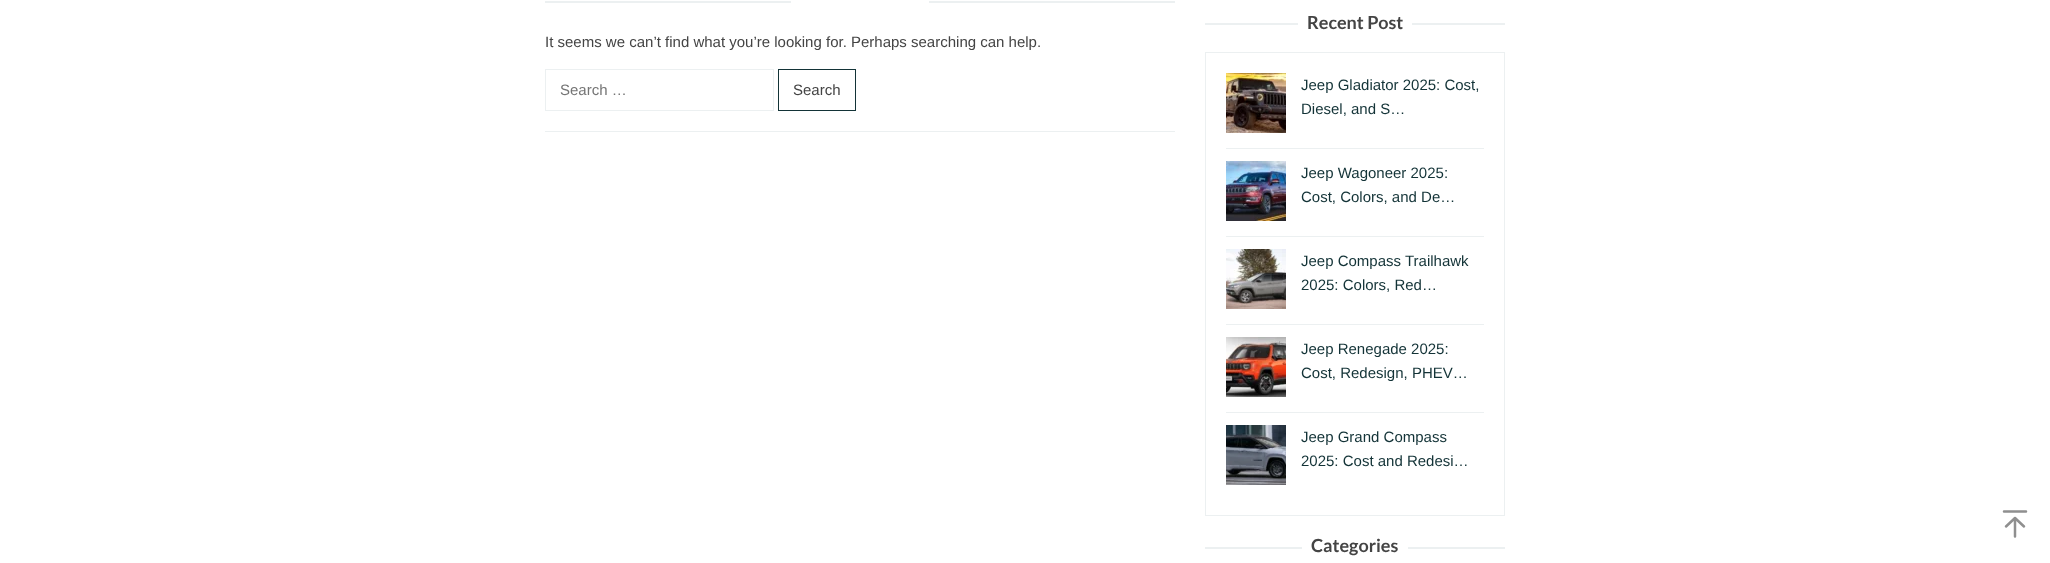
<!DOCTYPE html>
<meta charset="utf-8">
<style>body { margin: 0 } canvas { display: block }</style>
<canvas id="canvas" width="2050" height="563"></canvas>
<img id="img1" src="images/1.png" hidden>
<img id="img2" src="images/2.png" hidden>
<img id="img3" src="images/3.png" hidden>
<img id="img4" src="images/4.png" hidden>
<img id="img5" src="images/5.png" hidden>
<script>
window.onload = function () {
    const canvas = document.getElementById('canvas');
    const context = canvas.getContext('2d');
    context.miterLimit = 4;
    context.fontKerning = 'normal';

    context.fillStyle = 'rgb(255, 255, 255)';
    context.fillRect(0, 0, 2050, 563);
    context.fillStyle = 'rgb(236, 240, 241)';
    context.fillRect(545, 131, 630, 1);
    context.fillRect(545, 1, 246, 2);
    context.fillRect(929, 1, 246, 2);
    context.strokeStyle = 'rgb(236, 240, 241)';
    context.strokeRect(545.5, 69.5, 228, 41);
    context.strokeStyle = 'rgb(19, 51, 55)';
    context.strokeRect(778.5, 69.5, 77, 41);
    context.fillRect(1205, 23, 93, 2);
    context.fillRect(1412, 23, 93, 2);
    context.strokeStyle = 'rgb(236, 240, 241)';
    context.strokeRect(1205.5, 52.5, 299, 463);
    context.fillRect(1226, 148, 258, 1);
    context.drawImage(document.getElementById('img1'), 1226, 73, 60, 60);
    context.fillRect(1226, 236, 258, 1);
    context.drawImage(document.getElementById('img2'), 1226, 161, 60, 60);
    context.fillRect(1226, 324, 258, 1);
    context.drawImage(document.getElementById('img3'), 1226, 249, 60, 60);
    context.fillRect(1226, 412, 258, 1);
    context.drawImage(document.getElementById('img4'), 1226, 337, 60, 60);
    context.drawImage(document.getElementById('img5'), 1226, 425, 60, 60);
    context.fillRect(1205, 547, 97, 2);
    context.fillRect(1408, 547, 97, 2);
    context.beginPath();
    context.moveTo(2015, 536.5);
    context.lineTo(2015, 518);
    context.moveTo(2006, 526.5);
    context.lineTo(2015, 518);
    context.lineTo(2024, 526.5);
    context.moveTo(2004, 511.5);
    context.lineTo(2026, 511.5);
    context.strokeStyle = 'rgb(143, 143, 143)';
    context.lineWidth = 2.5;
    context.lineCap = 'round';
    context.lineJoin = 'round';
    context.stroke();
    context.font = '15px Liberation Sans';
    context.fillStyle = 'rgb(68, 68, 68)';
    context.fillText('It seems we can’t find what you’re looking for. Perhaps searching can help.', 545, 47);
    context.fillStyle = 'rgb(117, 117, 117)';
    context.fillText('Search …', 560, 95);
    context.fillStyle = 'rgb(68, 68, 68)';
    context.fillText('Search', 793, 95);
    context.font = 'bold 18px Lato';
    context.fillText('Recent Post', 1307, 29);
    context.font = '15px Liberation Sans';
    context.fillStyle = 'rgb(19, 51, 55)';
    context.fillText('Jeep Gladiator 2025: Cost,', 1301, 90);
    context.fillText('Diesel, and S…', 1301, 114);
    context.fillText('Jeep Wagoneer 2025:', 1301, 178);
    context.fillText('Cost, Colors, and De…', 1301, 202);
    context.fillText('Jeep Compass Trailhawk', 1301, 266);
    context.fillText('2025: Colors, Red…', 1301, 290);
    context.fillText('Jeep Renegade 2025:', 1301, 354);
    context.fillText('Cost, Redesign, PHEV…', 1301, 378);
    context.fillText('Jeep Grand Compass', 1301, 442);
    context.fillText('2025: Cost and Redesi…', 1301, 466);
    context.font = 'bold 18px Lato';
    context.fillStyle = 'rgb(68, 68, 68)';
    context.fillText('Categories', 1311, 552);
};
</script>
